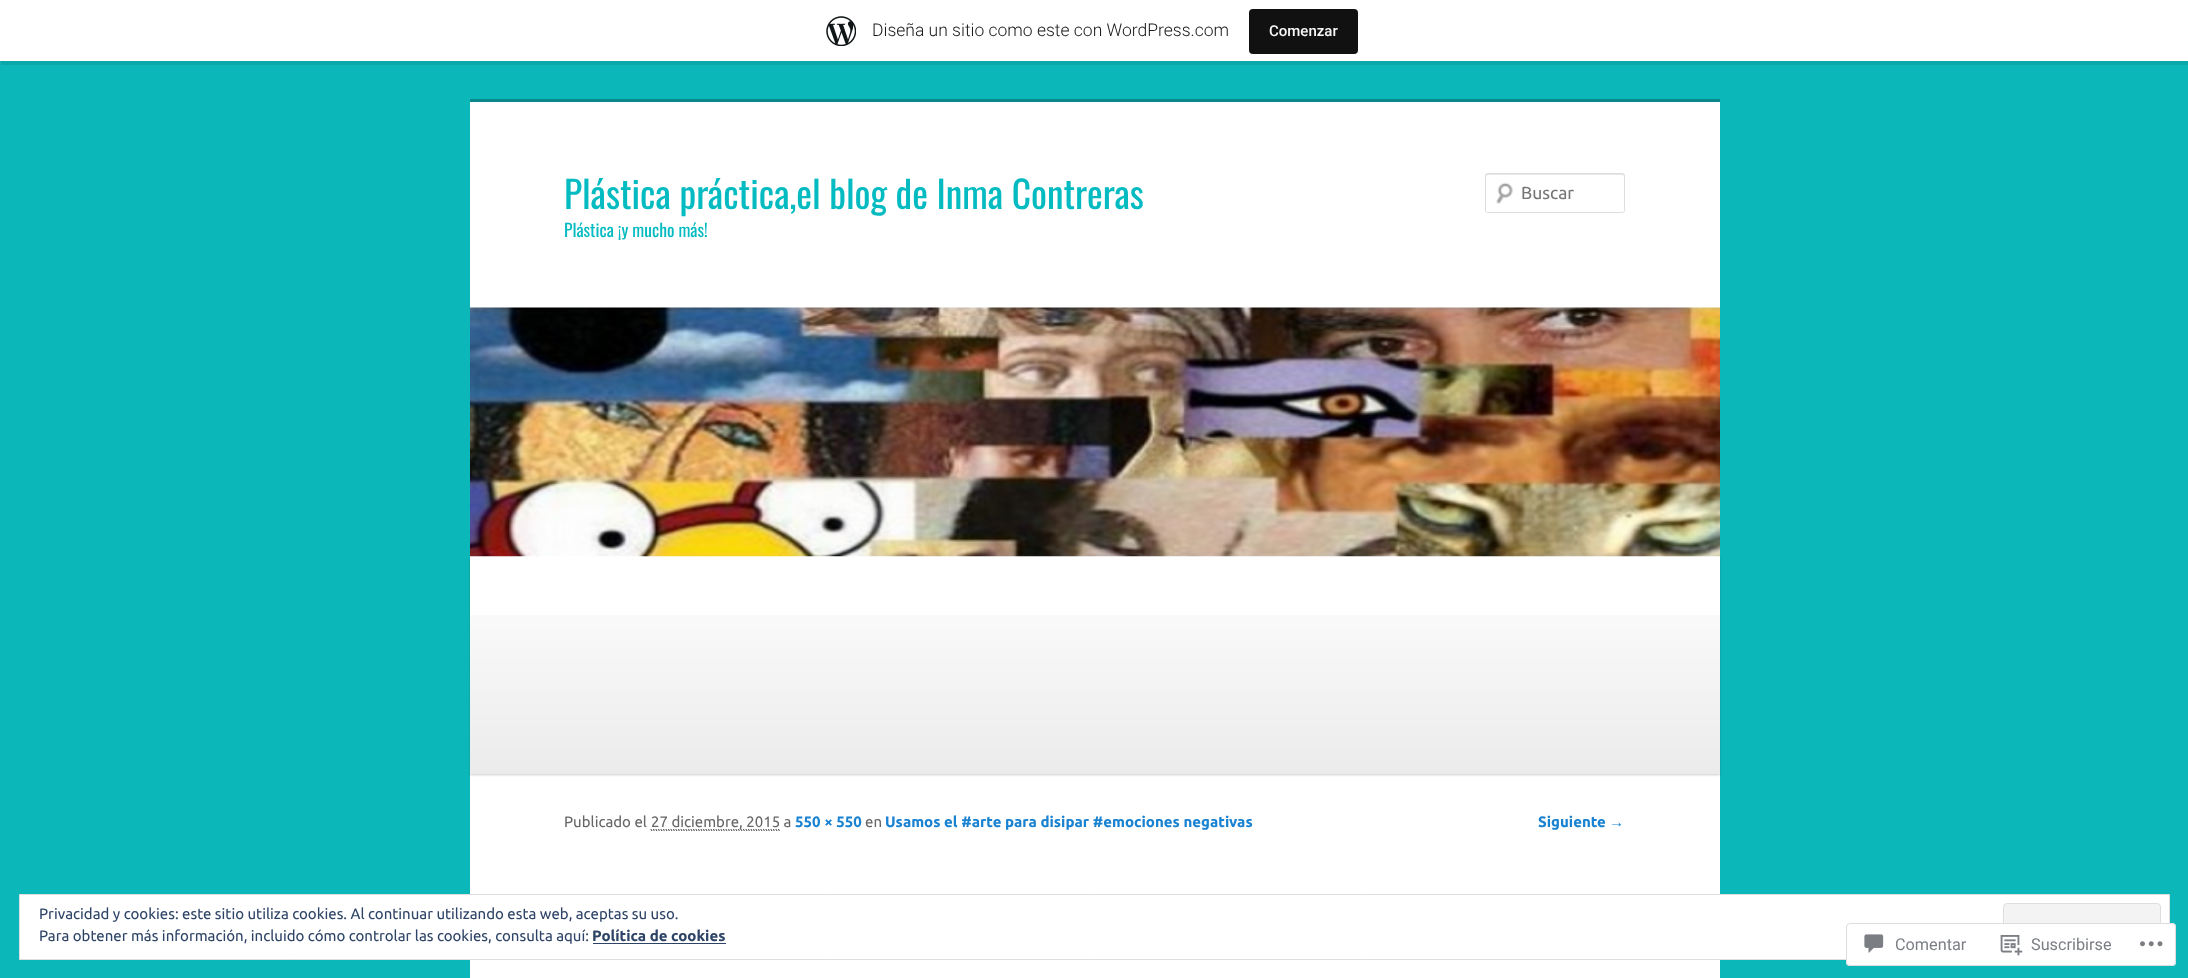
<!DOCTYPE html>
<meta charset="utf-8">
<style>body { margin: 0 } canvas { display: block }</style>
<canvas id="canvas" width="2188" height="978"></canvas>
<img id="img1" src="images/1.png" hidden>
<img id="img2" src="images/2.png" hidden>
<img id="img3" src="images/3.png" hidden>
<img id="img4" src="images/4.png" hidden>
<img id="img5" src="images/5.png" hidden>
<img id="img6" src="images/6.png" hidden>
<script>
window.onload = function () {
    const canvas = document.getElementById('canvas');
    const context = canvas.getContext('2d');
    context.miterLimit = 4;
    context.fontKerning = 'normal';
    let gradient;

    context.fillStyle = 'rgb(12, 183, 185)';
    context.fillRect(0, 0, 2188, 978);
    context.fillStyle = 'rgba(0, 0, 0, 0.08)';
    context.beginPath();
    context.moveTo(1, 61);
    context.lineTo(1, 65);
    context.lineTo(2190, 65);
    context.lineTo(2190, 4);
    context.lineTo(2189, 4);
    context.lineTo(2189, 61);
    context.closePath();
    context.fill();
    context.fillStyle = 'rgb(255, 255, 255)';
    context.fillRect(0, 0, 2188, 61);
    context.drawImage(document.getElementById('img1'), 826, 16, 30, 30);
    context.fillStyle = 'rgb(17, 17, 17)';
    context.beginPath();
    context.roundRect(1249, 9, 109, 45, 4);
    context.fill();
    context.fillStyle = 'rgb(255, 255, 255)';
    context.fillRect(470, 102, 1250, 876);
    context.fillStyle = 'rgb(8, 136, 139)';
    context.fillRect(470, 99, 1250, 3);
    context.drawImage(document.getElementById('img2'), 1496, 182, 17, 22);
    context.fillStyle = 'rgb(230, 230, 230)';
    context.beginPath();
    context.moveTo(1488, 175);
    context.lineTo(1622, 175);
    context.lineTo(1624, 176);
    context.bezierCurveTo(1624, 175, 1624, 174, 1623, 174);
    context.lineTo(1487, 174);
    context.bezierCurveTo(1486, 174, 1486, 175, 1486, 176);
    context.closePath();
    context.fill();
    context.beginPath();
    context.roundRect(1485.5, 173.5, 139, 39, 2);
    context.strokeStyle = 'rgb(221, 221, 221)';
    context.stroke();
    context.save();
    context.beginPath();
    context.moveTo(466, 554);
    context.lineTo(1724, 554);
    context.lineTo(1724, 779);
    context.lineTo(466, 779);
    context.closePath();
    context.moveTo(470, 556);
    context.lineTo(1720, 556);
    context.lineTo(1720, 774);
    context.lineTo(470, 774);
    context.closePath();
    context.clip('evenodd');
    context.fillStyle = 'rgba(0, 0, 0, 0.2)';
    context.filter = 'blur(1px)';
    context.beginPath();
    context.rect(470, 558, 1250, 217);
    context.fill();
    context.filter = 'none';
    context.restore();
    context.drawImage(document.getElementById('img3'), 470, 307, 1250, 250);
    gradient = context.createLinearGradient(1095, 556, 1095, 774);
    gradient.addColorStop(0, 'rgba(0, 0, 0, 0)');
    gradient.addColorStop(1, 'rgba(0, 0, 0, 0.08)');
    context.fillStyle = gradient;
    context.fillRect(470, 615, 1250, 159);
    context.beginPath();
    context.moveTo(651, 830.5);
    context.lineTo(780, 830.5);
    context.strokeStyle = 'rgb(102, 102, 102)';
    context.lineWidth = 1.2;
    context.setLineDash([1.25, 1.25]);
    context.stroke();
    context.beginPath();
    context.moveTo(650.5, 829.5);
    context.lineTo(780, 829.5);
    context.stroke();
    context.fillStyle = 'rgb(255, 255, 255)';
    context.beginPath();
    context.rect(19.5, 894.5, 2150, 65);
    context.fill();
    context.strokeStyle = 'rgb(222, 222, 222)';
    context.lineWidth = 1;
    context.setLineDash([]);
    context.stroke();
    context.fillStyle = 'rgb(243, 243, 243)';
    context.beginPath();
    context.roundRect(2003.5, 903.5, 157, 47, 3.5);
    context.fill();
    context.stroke();
    context.fillStyle = 'rgb(46, 68, 103)';
    context.fillRect(593, 943, 133, 1);
    context.fillStyle = 'rgba(255, 255, 255, 0.98)';
    context.beginPath();
    context.roundRect(1846, 923, 330, 43, 4);
    context.fill();
    context.beginPath();
    context.roundRect(1846.5, 923.5, 329, 42, 3.5);
    context.strokeStyle = 'rgba(220, 220, 222, 0.98)';
    context.stroke();
    context.drawImage(document.getElementById('img4'), 1864, 934, 20, 19);
    context.drawImage(document.getElementById('img5'), 2000, 935, 23, 21);
    context.drawImage(document.getElementById('img6'), 2140, 941, 23, 6);
    context.font = '300 17.5px Roboto';
    context.fillStyle = 'rgb(23, 23, 23)';
    context.fillText('Diseña un sitio como este con WordPress.com', 872, 36);
    context.font = '500 15px Roboto';
    context.fillStyle = 'rgb(246, 247, 247)';
    context.fillText('Comenzar', 1269, 36);
    context.font = '37.5px Oswald';
    context.fillStyle = 'rgb(3, 187, 193)';
    context.fillText('Plástica práctica,el blog de Inma Contreras', 564, 209);
    context.font = '17.5px Oswald';
    context.fillText('Plástica ¡y mucho más!', 564, 237);
    context.font = '17.5px Ubuntu';
    context.fillStyle = 'rgb(117, 117, 117)';
    context.fillText('Buscar', 1521, 199);
    context.font = '15px Ubuntu';
    context.fillStyle = 'rgb(102, 102, 102)';
    context.fillText('Publicado el', 564, 827);
    context.fillText('27 diciembre, 2015 a', 651, 827);
    context.font = 'bold 15px Ubuntu';
    context.fillStyle = 'rgb(25, 130, 209)';
    context.fillText('550 × 550', 795, 827);
    context.font = '15px Ubuntu';
    context.fillStyle = 'rgb(102, 102, 102)';
    context.fillText('en', 865, 827);
    context.font = 'bold 15px Ubuntu';
    context.fillStyle = 'rgb(25, 130, 209)';
    context.fillText('Usamos el #arte para disipar #emociones negativas', 885, 827);
    context.fillText('Siguiente', 1538, 827);
    context.font = 'bold 15px Liberation Sans';
    context.fillText('→', 1609, 827);
    context.font = '15px Ubuntu';
    context.fillStyle = 'rgb(46, 68, 103)';
    context.fillText('Privacidad y cookies: este sitio utiliza cookies. Al continuar utilizando esta web, aceptas su uso.', 39, 919);
    context.fillText('Para obtener más información, incluido cómo controlar las cookies, consulta aquí:', 39, 941);
    context.font = 'bold 15px Ubuntu';
    context.fillText('Política de cookies', 592, 941);
    context.font = '16.25px Roboto';
    context.fillStyle = 'rgb(123, 127, 133)';
    context.fillText('Comentar', 1895, 950);
    context.fillText('Suscribirse', 2031, 950);
};
</script>
